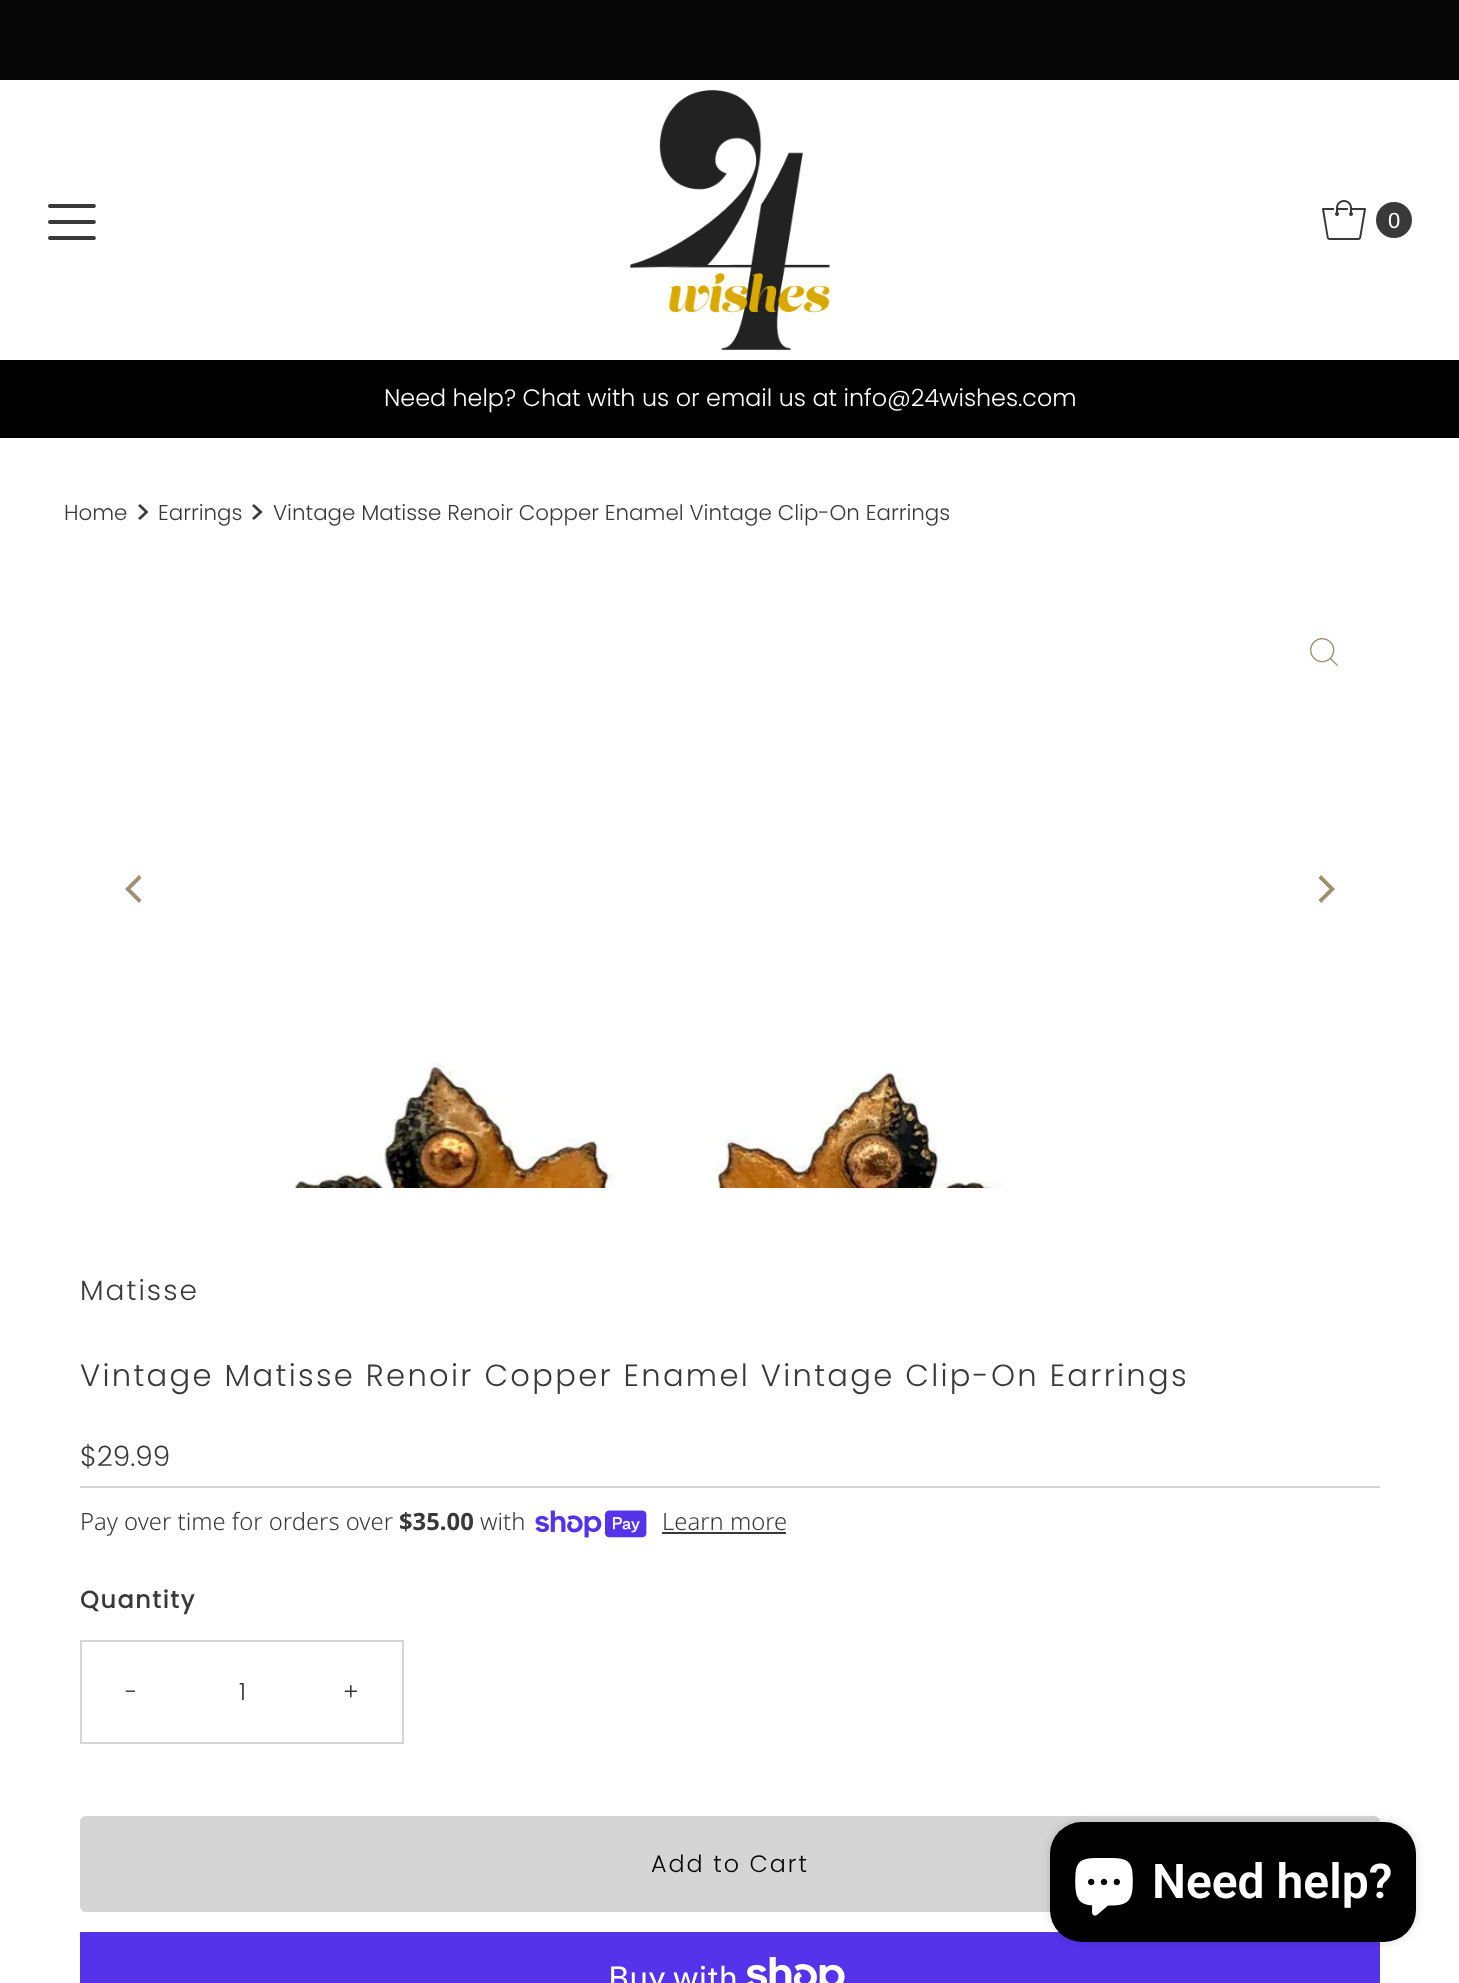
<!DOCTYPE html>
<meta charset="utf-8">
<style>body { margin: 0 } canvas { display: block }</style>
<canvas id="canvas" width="1459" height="1983"></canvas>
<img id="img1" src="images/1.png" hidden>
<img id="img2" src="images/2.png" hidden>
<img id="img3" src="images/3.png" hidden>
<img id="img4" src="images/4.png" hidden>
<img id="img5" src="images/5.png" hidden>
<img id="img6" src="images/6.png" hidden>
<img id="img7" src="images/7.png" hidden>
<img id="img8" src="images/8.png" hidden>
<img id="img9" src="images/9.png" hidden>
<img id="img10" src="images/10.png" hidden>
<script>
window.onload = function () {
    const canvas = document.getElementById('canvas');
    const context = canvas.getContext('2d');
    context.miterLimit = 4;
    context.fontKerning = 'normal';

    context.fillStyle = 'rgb(255, 255, 255)';
    context.fillRect(0, 0, 1459, 1983);
    context.fillStyle = 'rgb(7, 7, 7)';
    context.fillRect(0, 0, 1459, 80);
    context.drawImage(document.getElementById('img1'), 48, 204, 48, 36);
    context.drawImage(document.getElementById('img2'), 629, 90, 201, 260);
    context.drawImage(document.getElementById('img3'), 1322, 200, 44, 40);
    context.fillStyle = 'rgb(57, 57, 57)';
    context.beginPath();
    context.arc(1394, 220, 18, 0, 2 * Math.PI);
    context.fill();
    context.fillStyle = 'rgb(0, 0, 0)';
    context.fillRect(0, 360, 1459, 78);
    context.drawImage(document.getElementById('img4'), 138, 504, 10, 16);
    context.drawImage(document.getElementById('img5'), 252, 504, 11, 16);
    context.fillStyle = 'rgb(159, 144, 112)';
    context.beginPath();
    context.moveTo(125, 889);
    context.lineTo(139, 903);
    context.lineTo(141.5, 900);
    context.lineTo(130.5, 889);
    context.lineTo(141.5, 878);
    context.lineTo(139, 875);
    context.closePath();
    context.fill();
    context.drawImage(document.getElementById('img6'), 1310, 638, 28, 28);
    context.drawImage(document.getElementById('img7'), 292, 1062, 711, 126);
    context.beginPath();
    context.moveTo(1335, 889);
    context.lineTo(1321, 875);
    context.lineTo(1318.5, 878);
    context.lineTo(1329.5, 889);
    context.lineTo(1318.5, 900);
    context.lineTo(1321, 903);
    context.closePath();
    context.fill();
    context.fillStyle = 'rgb(213, 213, 213)';
    context.fillRect(80, 1486, 1300, 2);
    context.drawImage(document.getElementById('img8'), 535, 1510, 112, 28);
    context.fillStyle = 'rgb(57, 57, 57)';
    context.fillRect(662, 1532, 124, 2);
    context.strokeStyle = 'rgb(213, 213, 213)';
    context.lineWidth = 2;
    context.strokeRect(81, 1641, 322, 102);
    context.fillStyle = 'rgb(213, 213, 213)';
    context.beginPath();
    context.roundRect(80, 1816, 1300, 96, 6);
    context.fill();
    context.fillStyle = 'rgb(84, 51, 235)';
    context.fillRect(80, 1932, 1300, 51);
    context.drawImage(document.getElementById('img9'), 747, 1957, 98, 26);
    context.fillStyle = 'rgba(0, 0, 0, 0.15)';
    context.filter = 'blur(5px)';
    context.beginPath();
    context.roundRect(1050, 1822, 366, 120, 32);
    context.fill();
    context.filter = 'none';
    context.fillStyle = 'rgb(0, 0, 0)';
    context.beginPath();
    context.roundRect(1050, 1822, 366, 120, 32);
    context.fill();
    context.drawImage(document.getElementById('img10'), 1075, 1858, 58, 58);
    context.font = '22px Liberation Sans';
    context.fillStyle = 'rgb(255, 255, 255)';
    context.fillText('0', 1388, 228);
    context.font = '300 23.8px Poppins';
    context.fillText('Need help? Chat with us or email us at info@24wishes.com', 384, 406);
    context.font = '300 21.4px Poppins';
    context.fillStyle = 'rgb(57, 57, 57)';
    context.fillText('Home', 64, 520);
    context.fillText('Earrings', 158, 520);
    context.fillText('Vintage Matisse Renoir Copper Enamel Vintage Clip-On Earrings', 273, 520);
    context.letterSpacing = '2px';
    context.font = '300 28px Poppins';
    context.fillText('Matisse', 80, 1300);
    context.letterSpacing = '2.3px';
    context.font = '300 30.6px Poppins';
    context.fillText('Vintage Matisse Renoir Copper Enamel Vintage Clip-On Earrings', 80, 1386);
    context.letterSpacing = '0px';
    context.font = '300 28px Poppins';
    context.fillText('$29.99', 80, 1466);
    context.font = '300 23.8px Noto Sans';
    context.fillText('Pay over time for orders over', 80, 1530);
    context.font = 'bold 23.8px Noto Sans';
    context.fillText('$35.00', 399, 1530);
    context.font = '300 23.8px Noto Sans';
    context.fillText('with', 480, 1530);
    context.fillText('Learn more', 662, 1530);
    context.letterSpacing = '1.75px';
    context.font = 'bold 23.8px Poppins';
    context.fillText('Quantity', 80, 1608);
    context.letterSpacing = '2px';
    context.font = '300 23.8px Poppins';
    context.fillText('-', 125, 1700);
    context.letterSpacing = '0px';
    context.fillText('1', 239, 1700);
    context.letterSpacing = '2px';
    context.fillText('+', 343, 1700);
    context.fillStyle = 'rgb(0, 0, 0)';
    context.fillText('Add to Cart', 651, 1872);
    context.letterSpacing = '0px';
    context.font = '32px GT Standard';
    context.fillStyle = 'rgb(255, 255, 255)';
    context.fillText('Buy with', 608, 1989);
    context.font = '600 48px Roboto';
    context.fillText('Need help?', 1152, 1898);
};
</script>
